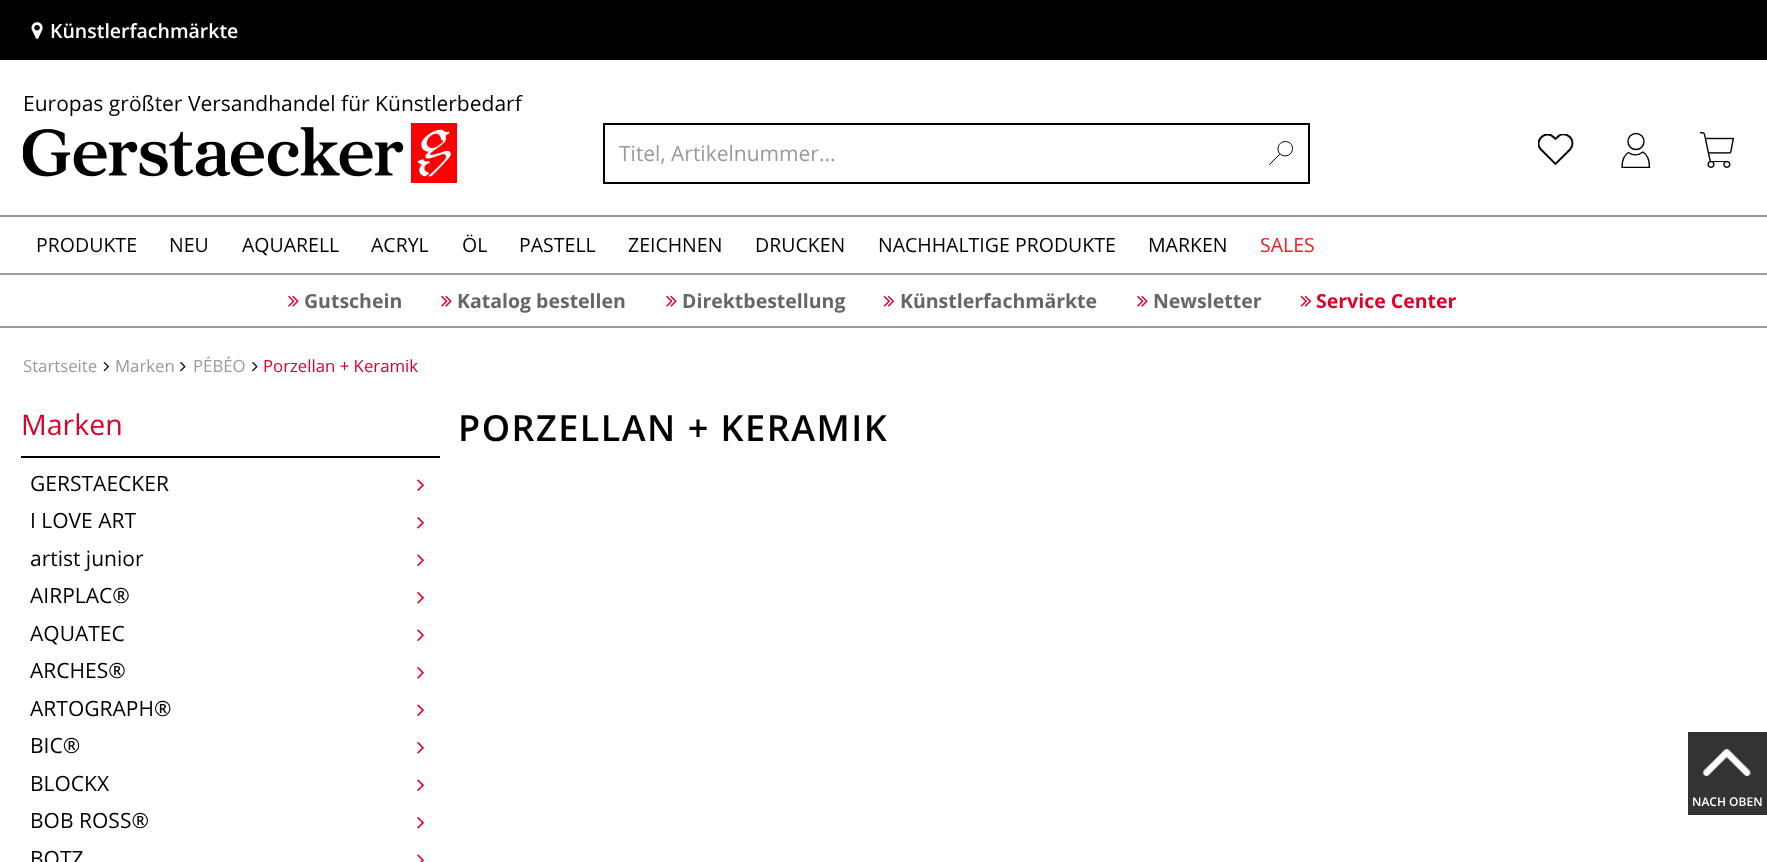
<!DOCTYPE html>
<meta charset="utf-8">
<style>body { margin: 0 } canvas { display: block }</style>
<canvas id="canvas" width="1767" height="862"></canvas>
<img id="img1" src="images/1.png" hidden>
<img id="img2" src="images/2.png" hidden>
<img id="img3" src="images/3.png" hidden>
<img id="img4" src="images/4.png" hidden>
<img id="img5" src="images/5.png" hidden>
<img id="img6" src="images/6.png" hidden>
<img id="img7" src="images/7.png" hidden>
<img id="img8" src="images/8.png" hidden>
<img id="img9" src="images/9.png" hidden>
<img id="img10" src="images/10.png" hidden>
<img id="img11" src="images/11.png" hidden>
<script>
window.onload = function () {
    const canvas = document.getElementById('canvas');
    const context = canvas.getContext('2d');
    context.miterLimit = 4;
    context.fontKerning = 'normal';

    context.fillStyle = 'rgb(255, 255, 255)';
    context.fillRect(0, 0, 1767, 862);
    context.fillStyle = 'rgb(0, 0, 0)';
    context.fillRect(0, 0, 1767, 60);
    context.drawImage(document.getElementById('img1'), 31, 22, 12, 17);
    context.drawImage(document.getElementById('img2'), 23, 123, 434, 60);
    context.fillRect(603, 123, 707, 2);
    context.fillRect(603, 182, 650, 2);
    context.fillRect(603, 123, 2, 60);
    context.beginPath();
    context.moveTo(1292.5, 148.5);
    context.bezierCurveTo(1292.5, 158.5, 1277.5, 158, 1278, 148.5);
    context.bezierCurveTo(1278.5, 139, 1292.5, 139.5, 1292.5, 148.5);
    context.closePath();
    context.strokeStyle = 'rgb(0, 0, 0)';
    context.stroke();
    context.beginPath();
    context.moveTo(1269.5, 164.5);
    context.lineTo(1280, 154);
    context.lineCap = 'round';
    context.stroke();
    context.fillRect(1308, 123, 2, 60);
    context.fillRect(1253, 182, 57, 2);
    context.save();
    context.beginPath();
    context.rect(1538, 134, 36, 33);
    context.clip();
    context.beginPath();
    context.moveTo(1572.5, 143.5);
    context.bezierCurveTo(1572.5, 135.5, 1562.5, 131.5, 1557.5, 137);
    context.lineTo(1555.5, 139);
    context.lineTo(1553.5, 137);
    context.bezierCurveTo(1545.5, 129, 1533, 141.5, 1541, 149.5);
    context.lineTo(1555.5, 164);
    context.lineTo(1570, 149.5);
    context.bezierCurveTo(1571.5, 148, 1572.5, 146, 1572.5, 143.5);
    context.closePath();
    context.lineWidth = 1.9;
    context.lineCap = 'butt';
    context.stroke();
    context.restore();
    context.beginPath();
    context.arc(1636, 141.5, 8, 0, 2 * Math.PI);
    context.lineWidth = 1.4;
    context.stroke();
    context.save();
    context.beginPath();
    context.rect(1619, 132, 36, 36);
    context.clip();
    context.beginPath();
    context.moveTo(1643, 152);
    context.bezierCurveTo(1638.5, 155.5, 1633, 155.5, 1628.5, 152.5);
    context.bezierCurveTo(1623, 155.5, 1622, 161.5, 1622, 167.5);
    context.lineTo(1649.5, 167.5);
    context.bezierCurveTo(1649.5, 161.5, 1648.5, 155.5, 1643, 152);
    context.closePath();
    context.lineCap = 'butt';
    context.stroke();
    context.restore();
    context.drawImage(document.getElementById('img3'), 1700, 132, 34, 36);
    context.fillStyle = 'rgb(153, 153, 153)';
    context.fillRect(0, 215, 1767, 2);
    context.fillRect(0, 273, 1767, 2);
    context.fillRect(0, 326, 1767, 2);
    context.drawImage(document.getElementById('img4'), 288, 295, 11, 12);
    context.drawImage(document.getElementById('img4'), 441, 295, 11, 12);
    context.drawImage(document.getElementById('img4'), 666, 295, 11, 12);
    context.drawImage(document.getElementById('img5'), 883, 295, 12, 12);
    context.drawImage(document.getElementById('img4'), 1137, 295, 11, 12);
    context.drawImage(document.getElementById('img5'), 1300, 295, 12, 12);
    context.drawImage(document.getElementById('img6'), 103, 362, 6, 10);
    context.drawImage(document.getElementById('img7'), 180, 362, 6, 10);
    context.drawImage(document.getElementById('img7'), 252, 362, 6, 10);
    context.fillStyle = 'rgb(0, 0, 0)';
    context.fillRect(21, 456, 419, 2);
    context.drawImage(document.getElementById('img8'), 417, 479, 7, 12);
    context.drawImage(document.getElementById('img9'), 417, 517, 7, 12);
    context.drawImage(document.getElementById('img8'), 417, 554, 7, 12);
    context.drawImage(document.getElementById('img9'), 417, 592, 7, 12);
    context.drawImage(document.getElementById('img8'), 417, 629, 7, 12);
    context.drawImage(document.getElementById('img9'), 417, 667, 7, 12);
    context.drawImage(document.getElementById('img8'), 417, 704, 7, 12);
    context.drawImage(document.getElementById('img9'), 417, 742, 7, 12);
    context.drawImage(document.getElementById('img8'), 417, 779, 7, 12);
    context.drawImage(document.getElementById('img9'), 417, 817, 7, 12);
    context.drawImage(document.getElementById('img10'), 417, 854, 7, 8);
    context.fillStyle = 'rgb(51, 51, 51)';
    context.fillRect(1688, 732, 79, 83);
    context.drawImage(document.getElementById('img11'), 1702, 749, 49, 27);
    context.font = '600 19.5px Open Sans';
    context.fillStyle = 'rgb(255, 255, 255)';
    context.fillText('Künstlerfachmärkte', 50, 38);
    context.font = '21px Open Sans';
    context.fillStyle = 'rgb(0, 0, 0)';
    context.fillText('Europas größter Versandhandel für Künstlerbedarf', 23, 111);
    context.fillStyle = 'rgb(153, 153, 153)';
    context.fillText('Titel, Artikelnummer...', 619, 161);
    context.font = '19.5px Open Sans';
    context.fillStyle = 'rgb(0, 0, 0)';
    context.fillText('PRODUKTE', 36, 252);
    context.fillText('NEU', 169, 252);
    context.fillText('AQUARELL', 242, 252);
    context.fillText('ACRYL', 371, 252);
    context.fillText('ÖL', 462, 252);
    context.fillText('PASTELL', 519, 252);
    context.fillText('ZEICHNEN', 628, 252);
    context.fillText('DRUCKEN', 755, 252);
    context.fillText('NACHHALTIGE PRODUKTE', 878, 252);
    context.fillText('MARKEN', 1148, 252);
    context.fillStyle = 'rgb(240, 33, 33)';
    context.fillText('SALES', 1260, 252);
    context.font = 'bold 19.5px Open Sans';
    context.fillStyle = 'rgb(102, 102, 102)';
    context.fillText('Gutschein', 304, 308);
    context.fillText('Katalog bestellen', 457, 308);
    context.fillText('Direktbestellung', 682, 308);
    context.fillText('Künstlerfachmärkte', 900, 308);
    context.fillText('Newsletter', 1153, 308);
    context.fillStyle = 'rgb(223, 0, 41)';
    context.fillText('Service Center', 1316, 308);
    context.font = '16.75px Open Sans';
    context.fillStyle = 'rgb(153, 153, 153)';
    context.fillText('Startseite', 23, 372);
    context.fillText('Marken', 115, 372);
    context.fillText('PÉBÉO', 193, 372);
    context.fillStyle = 'rgb(223, 0, 41)';
    context.fillText('Porzellan + Keramik', 263, 372);
    context.font = '28.5px Open Sans';
    context.fillText('Marken', 21, 435);
    context.font = '21px Open Sans';
    context.fillStyle = 'rgb(0, 0, 0)';
    context.fillText('GERSTAECKER', 30, 491);
    context.fillText('I LOVE ART', 30, 528);
    context.fillText('artist junior', 30, 566);
    context.fillText('AIRPLAC®', 30, 603);
    context.fillText('AQUATEC', 30, 641);
    context.fillText('ARCHES®', 30, 678);
    context.fillText('ARTOGRAPH®', 30, 716);
    context.fillText('BIC®', 30, 753);
    context.fillText('BLOCKX', 30, 791);
    context.fillText('BOB ROSS®', 30, 828);
    context.fillText('BOTZ', 30, 866);
    context.letterSpacing = '1.5px';
    context.font = '600 36px Open Sans';
    context.fillText('PORZELLAN + KERAMIK', 458, 441);
    context.letterSpacing = '0px';
    context.font = '600 12px Open Sans';
    context.fillStyle = 'rgb(255, 255, 255)';
    context.fillText('NACH OBEN', 1692, 806);
};
</script>
